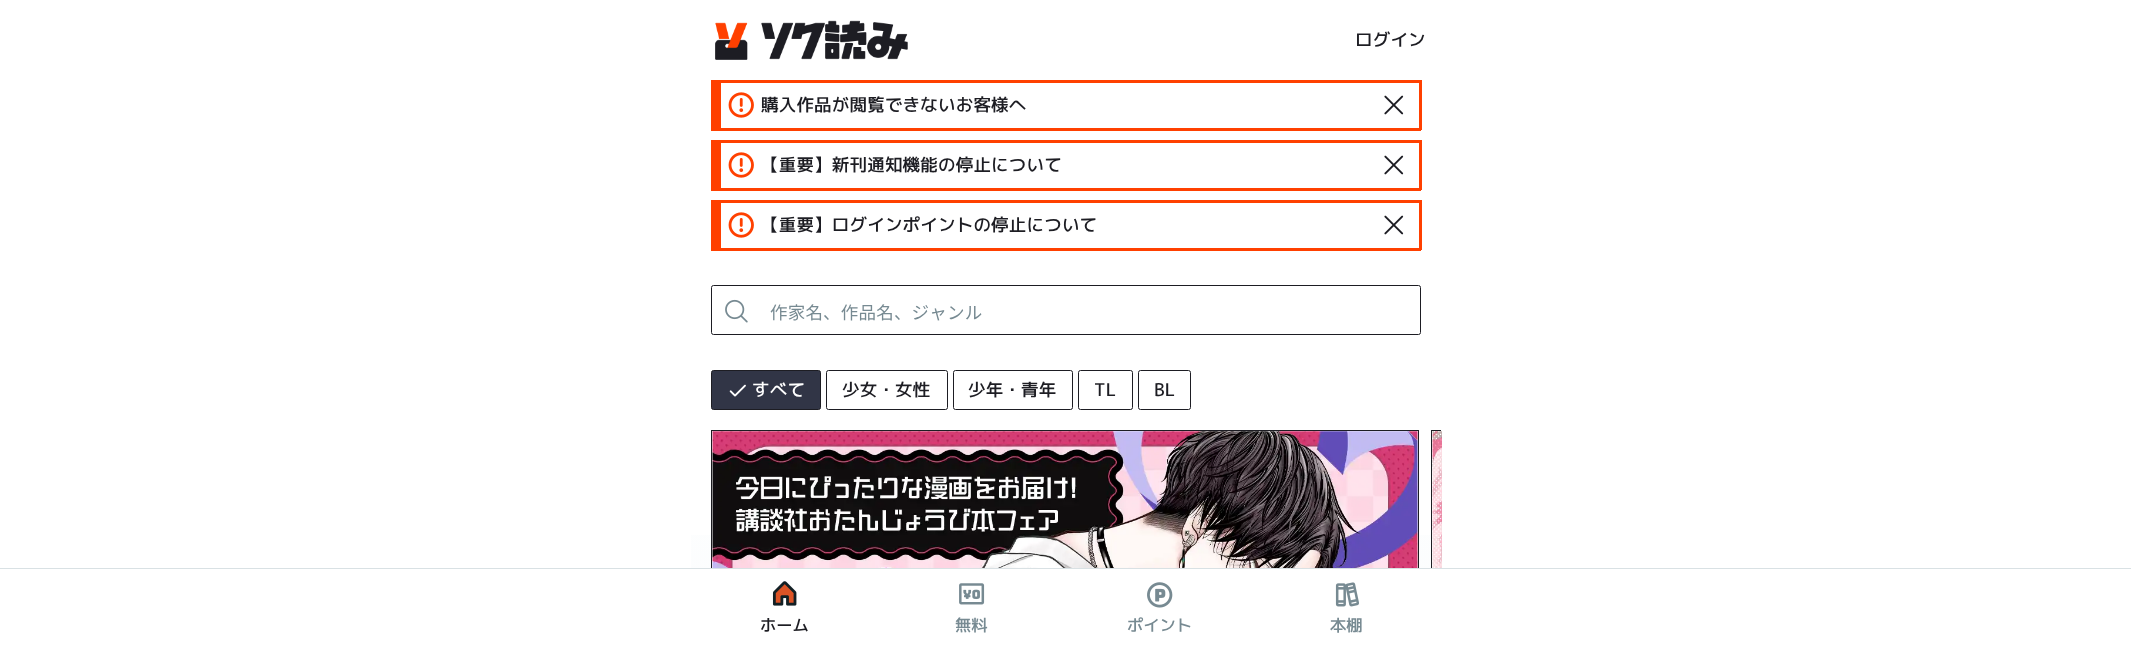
<!DOCTYPE html>
<meta charset="utf-8">
<style>body { margin: 0 } canvas { display: block }</style>
<canvas id="canvas" width="2131" height="654"></canvas>
<img id="img1" src="images/1.png" hidden>
<img id="img2" src="images/2.png" hidden>
<img id="img3" src="images/3.png" hidden>
<img id="img4" src="images/4.png" hidden>
<img id="img5" src="images/5.png" hidden>
<img id="img6" src="images/6.png" hidden>
<img id="img7" src="images/7.png" hidden>
<img id="img8" src="images/8.png" hidden>
<img id="img9" src="images/9.png" hidden>
<img id="img10" src="images/10.png" hidden>
<img id="img11" src="images/11.png" hidden>
<script>
window.onload = function () {
    const canvas = document.getElementById('canvas');
    const context = canvas.getContext('2d');
    context.miterLimit = 4;
    context.fontKerning = 'normal';
    let gradient;

    context.fillStyle = 'rgb(255, 255, 255)';
    context.fillRect(0, 0, 2131, 654);
    context.drawImage(document.getElementById('img1'), 715, 20, 193, 40);
    context.fillStyle = 'rgb(255, 64, 0)';
    context.fillRect(721, 80, 700, 3);
    context.fillRect(1419, 80, 3, 50);
    context.fillRect(711, 128, 710, 3);
    context.fillRect(711, 80, 10, 48);
    context.drawImage(document.getElementById('img2'), 728, 92, 26, 26);
    context.drawImage(document.getElementById('img3'), 1384, 95, 20, 20);
    context.fillRect(721, 140, 700, 3);
    context.fillRect(1419, 140, 3, 50);
    context.fillRect(711, 188, 710, 3);
    context.fillRect(711, 140, 10, 48);
    context.drawImage(document.getElementById('img2'), 728, 152, 26, 26);
    context.drawImage(document.getElementById('img3'), 1384, 155, 20, 20);
    context.fillRect(721, 200, 700, 3);
    context.fillRect(1419, 200, 3, 50);
    context.fillRect(711, 248, 710, 3);
    context.fillRect(711, 200, 10, 48);
    context.drawImage(document.getElementById('img2'), 728, 212, 26, 26);
    context.drawImage(document.getElementById('img3'), 1384, 215, 20, 20);
    context.beginPath();
    context.roundRect(711.5, 285.5, 709, 49, 2);
    context.strokeStyle = 'rgb(29, 29, 35)';
    context.stroke();
    context.drawImage(document.getElementById('img4'), 725, 299, 23, 24);
    context.fillStyle = 'rgb(49, 53, 70)';
    context.beginPath();
    context.roundRect(711.5, 370.5, 109, 39, 2);
    context.fill();
    context.stroke();
    context.drawImage(document.getElementById('img5'), 729, 384, 17, 13);
    context.beginPath();
    context.roundRect(826.5, 370.5, 121, 39, 2);
    context.stroke();
    context.beginPath();
    context.roundRect(953.5, 370.5, 119, 39, 2);
    context.stroke();
    context.beginPath();
    context.roundRect(1078.5, 370.5, 54, 39, 2);
    context.stroke();
    context.beginPath();
    context.roundRect(1138.5, 370.5, 52, 39, 2);
    context.stroke();
    gradient = context.createLinearGradient(1066, 430, 1066, 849);
    gradient.addColorStop(0, 'rgb(255, 255, 255)');
    gradient.addColorStop(1, 'rgb(245, 249, 251)');
    context.fillStyle = gradient;
    context.fillRect(691, 535, 750, 33);
    context.strokeRect(711.5, 430.5, 707, 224);
    context.drawImage(document.getElementById('img6'), 712, 431, 706, 137);
    context.save();
    context.beginPath();
    context.rect(691, 430, 750, 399);
    context.clip();
    context.strokeRect(1431.5, 430.5, 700, 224);
    context.restore();
    context.drawImage(document.getElementById('img7'), 1432, 431, 10, 137);
    context.fillStyle = 'rgb(255, 255, 255)';
    context.fillRect(711, 569, 721, 85);
    context.fillStyle = 'rgb(217, 225, 228)';
    context.fillRect(0, 568, 2131, 1);
    context.drawImage(document.getElementById('img8'), 772, 581, 25, 25);
    context.drawImage(document.getElementById('img9'), 959, 583, 26, 22);
    context.drawImage(document.getElementById('img10'), 1147, 582, 26, 26);
    context.drawImage(document.getElementById('img11'), 1335, 582, 24, 25);
    context.letterSpacing = '0.2px';
    context.font = '500 17.5px "M PLUS 1p"';
    context.fillStyle = 'rgb(29, 29, 35)';
    context.fillText('ログイン', 1355, 46);
    context.fillText('購入作品が閲覧できないお客様へ', 761, 111);
    context.fillText('【重要】新刊通知機能の停止について', 761, 171);
    context.fillText('【重要】ログインポイントの停止について', 761, 231);
    context.font = '17.5px Noto Sans JP';
    context.fillStyle = 'rgb(119, 138, 146)';
    context.fillText('作家名、作品名、ジャンル', 770, 319);
    context.font = '500 17.5px "M PLUS 1p"';
    context.fillStyle = 'rgb(255, 255, 255)';
    context.fillText('すべて', 752, 396);
    context.fillStyle = 'rgb(29, 29, 35)';
    context.fillText('少女・女性', 842, 396);
    context.fillText('少年・青年', 968, 396);
    context.fillText('TL', 1094, 396);
    context.fillText('BL', 1154, 396);
    context.letterSpacing = '0px';
    context.font = '500 16.25px "M PLUS 1p"';
    context.fillText('ホーム', 760, 631);
    context.fillStyle = 'rgb(119, 138, 146)';
    context.fillText('無料', 955, 631);
    context.fillText('ポイント', 1127, 631);
    context.fillText('本棚', 1330, 631);
};
</script>
